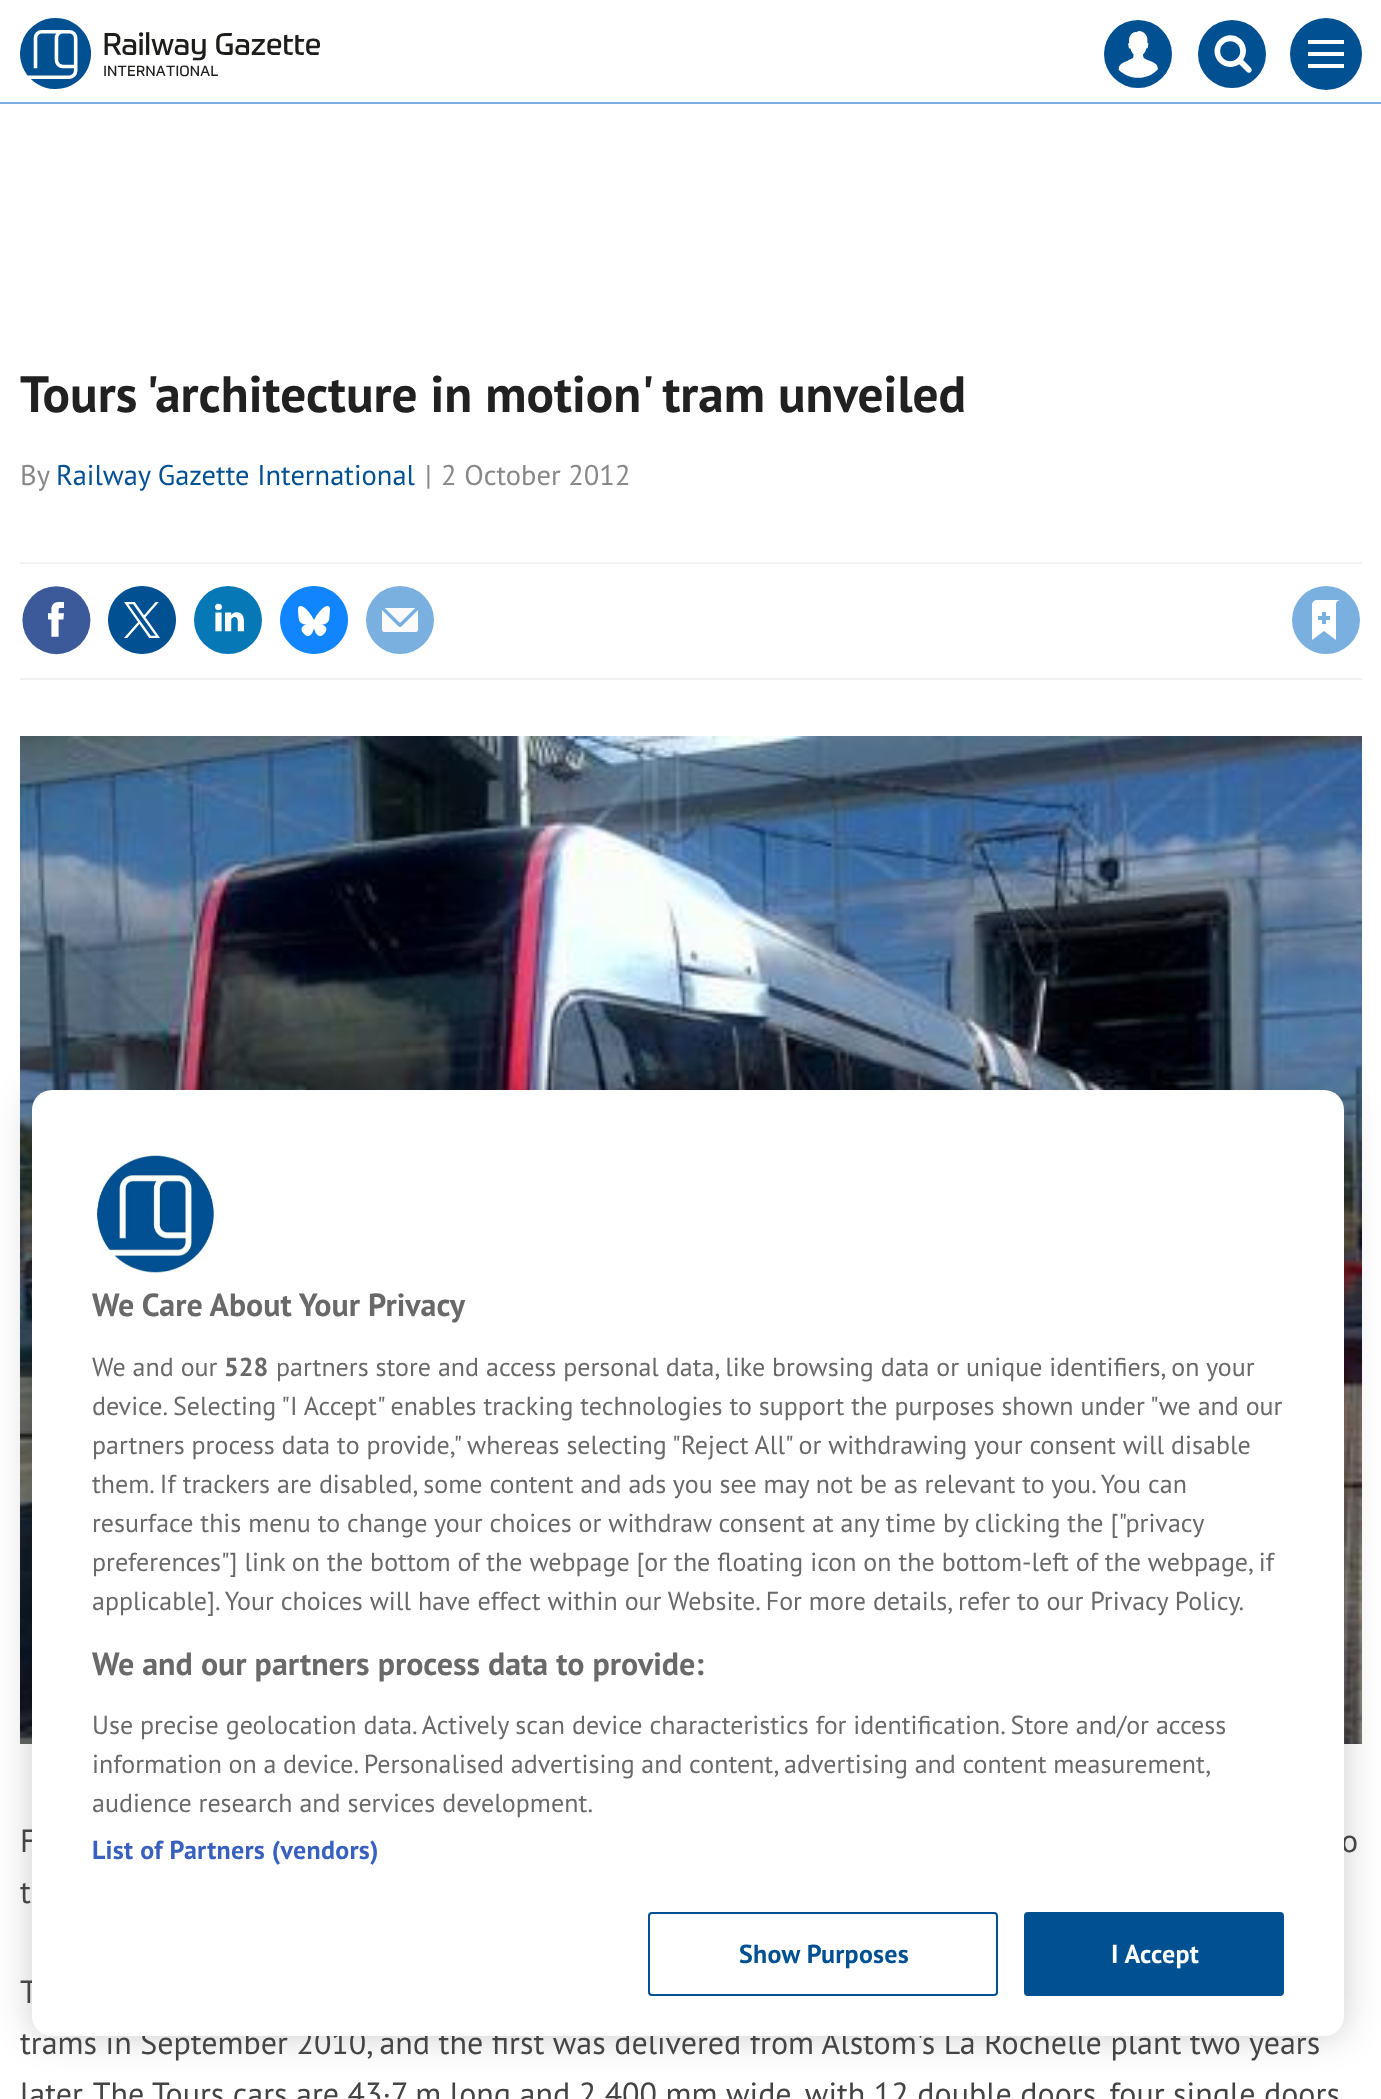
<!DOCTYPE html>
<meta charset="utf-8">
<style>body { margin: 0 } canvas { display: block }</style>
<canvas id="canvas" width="1381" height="2099"></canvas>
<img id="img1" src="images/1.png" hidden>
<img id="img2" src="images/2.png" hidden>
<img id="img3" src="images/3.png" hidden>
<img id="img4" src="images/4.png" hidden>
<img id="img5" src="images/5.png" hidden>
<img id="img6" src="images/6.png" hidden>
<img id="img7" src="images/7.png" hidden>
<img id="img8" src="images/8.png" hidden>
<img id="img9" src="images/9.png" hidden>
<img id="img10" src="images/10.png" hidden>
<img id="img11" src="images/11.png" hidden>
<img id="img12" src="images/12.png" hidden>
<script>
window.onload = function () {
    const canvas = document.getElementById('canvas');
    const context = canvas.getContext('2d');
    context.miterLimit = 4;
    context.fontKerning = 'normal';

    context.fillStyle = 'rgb(255, 255, 255)';
    context.fillRect(0, 0, 1381, 2099);
    context.fillStyle = 'rgb(122, 176, 224)';
    context.fillRect(0, 102, 1381, 2);
    context.drawImage(document.getElementById('img1'), 20, 18, 300, 71);
    context.drawImage(document.getElementById('img2'), 1104, 20, 68, 68);
    context.drawImage(document.getElementById('img3'), 1198, 20, 68, 68);
    context.fillStyle = 'rgb(0, 80, 146)';
    context.beginPath();
    context.arc(1326, 54, 36, 0, 2 * Math.PI);
    context.fill();
    context.drawImage(document.getElementById('img4'), 1308, 40, 36, 28);
    context.fillStyle = 'rgb(240, 242, 242)';
    context.fillRect(20, 562, 1342, 2);
    context.fillRect(20, 678, 1342, 2);
    context.drawImage(document.getElementById('img5'), 22, 586, 69, 69);
    context.drawImage(document.getElementById('img6'), 108, 586, 68, 68);
    context.drawImage(document.getElementById('img7'), 194, 586, 68, 68);
    context.drawImage(document.getElementById('img8'), 280, 586, 68, 68);
    context.drawImage(document.getElementById('img9'), 366, 586, 68, 68);
    context.drawImage(document.getElementById('img10'), 1292, 586, 68, 68);
    context.drawImage(document.getElementById('img11'), 20, 736, 1342, 1008);
    context.fillStyle = 'rgba(0, 0, 0, 0.2)';
    context.filter = 'blur(18px)';
    context.beginPath();
    context.roundRect(32, 1090, 1312, 946, 20);
    context.fill();
    context.filter = 'none';
    context.font = 'bold 51.25px PT Sans';
    context.fillStyle = 'rgb(33, 33, 33)';
    context.fillText('Tours \'architecture in motion\' tram unveiled', 20, 412);
    context.font = '28.5px PT Sans';
    context.fillStyle = 'rgb(136, 136, 136)';
    context.fillText('By', 20, 485);
    context.fillStyle = 'rgb(0, 80, 146)';
    context.fillText('Railway Gazette International', 56, 485);
    context.fillStyle = 'rgb(136, 136, 136)';
    context.fillText('|', 425, 485);
    context.fillText('2 October 2012', 441, 485);
    context.font = '32px PT Sans';
    context.fillStyle = 'rgb(68, 68, 68)';
    context.fillText('F', 20, 1852);
    context.fillText('o', 1341, 1852);
    context.fillText('t', 20, 1903);
    context.fillText('T', 20, 2003);
    context.fillText('trams in September 2010, and the first was delivered from Alstom\'s La Rochelle plant two years', 20, 2054);
    context.fillText('later. The Tours cars are 43·7 m long and 2 400 mm wide, with 12 double doors, four single doors', 20, 2105);
    context.fillStyle = 'rgb(255, 255, 255)';
    context.beginPath();
    context.roundRect(32, 1090, 1312, 946, 20);
    context.fill();
    context.font = 'bold 32px PT Sans';
    context.fillStyle = 'rgb(105, 105, 105)';
    context.fillText('We Care About Your Privacy', 92, 1316);
    context.font = '26px PT Sans';
    context.fillText('We and our', 92, 1376);
    context.font = 'bold 26px PT Sans';
    context.fillText('528', 224, 1376);
    context.font = '26px PT Sans';
    context.fillText('partners store and access personal data, like browsing data or unique identifiers, on your', 276, 1376);
    context.fillText('device. Selecting "I Accept" enables tracking technologies to support the purposes shown under "we and our', 92, 1415);
    context.fillText('partners process data to provide," whereas selecting "Reject All" or withdrawing your consent will disable', 92, 1454);
    context.fillText('them. If trackers are disabled, some content and ads you see may not be as relevant to you. You can', 92, 1493);
    context.fillText('resurface this menu to change your choices or withdraw consent at any time by clicking the ["privacy', 92, 1532);
    context.fillText('preferences"] link on the bottom of the webpage [or the floating icon on the bottom-left of the webpage, if', 92, 1571);
    context.fillText('applicable]. Your choices will have effect within our Website. For more details, refer to our Privacy Policy.', 92, 1610);
    context.font = 'bold 32px PT Sans';
    context.fillText('We and our partners process data to provide:', 92, 1675);
    context.font = '26px PT Sans';
    context.fillText('Use precise geolocation data. Actively scan device characteristics for identification. Store and/or access', 92, 1734);
    context.wordSpacing = '-0.25px';
    context.fillText('information on a device. Personalised advertising and content, advertising and content measurement,', 92, 1773);
    context.wordSpacing = '0px';
    context.fillText('audience research and services development.', 92, 1812);
    context.letterSpacing = '0.25px';
    context.font = 'bold 26px PT Sans';
    context.fillStyle = 'rgb(56, 96, 190)';
    context.fillText('List of Partners (vendors)', 92, 1859);
    context.drawImage(document.getElementById('img12'), 96, 1154, 122, 122);
    context.beginPath();
    context.roundRect(649, 1913, 348, 82, 3);
    context.strokeStyle = 'rgb(0, 80, 146)';
    context.lineWidth = 2;
    context.stroke();
    context.fillStyle = 'rgb(0, 80, 146)';
    context.fillText('Show Purposes', 739, 1963);
    context.beginPath();
    context.roundRect(1025, 1913, 258, 82, 3);
    context.fill();
    context.stroke();
    context.fillStyle = 'rgb(255, 255, 255)';
    context.fillText('I Accept', 1111, 1963);
};
</script>
